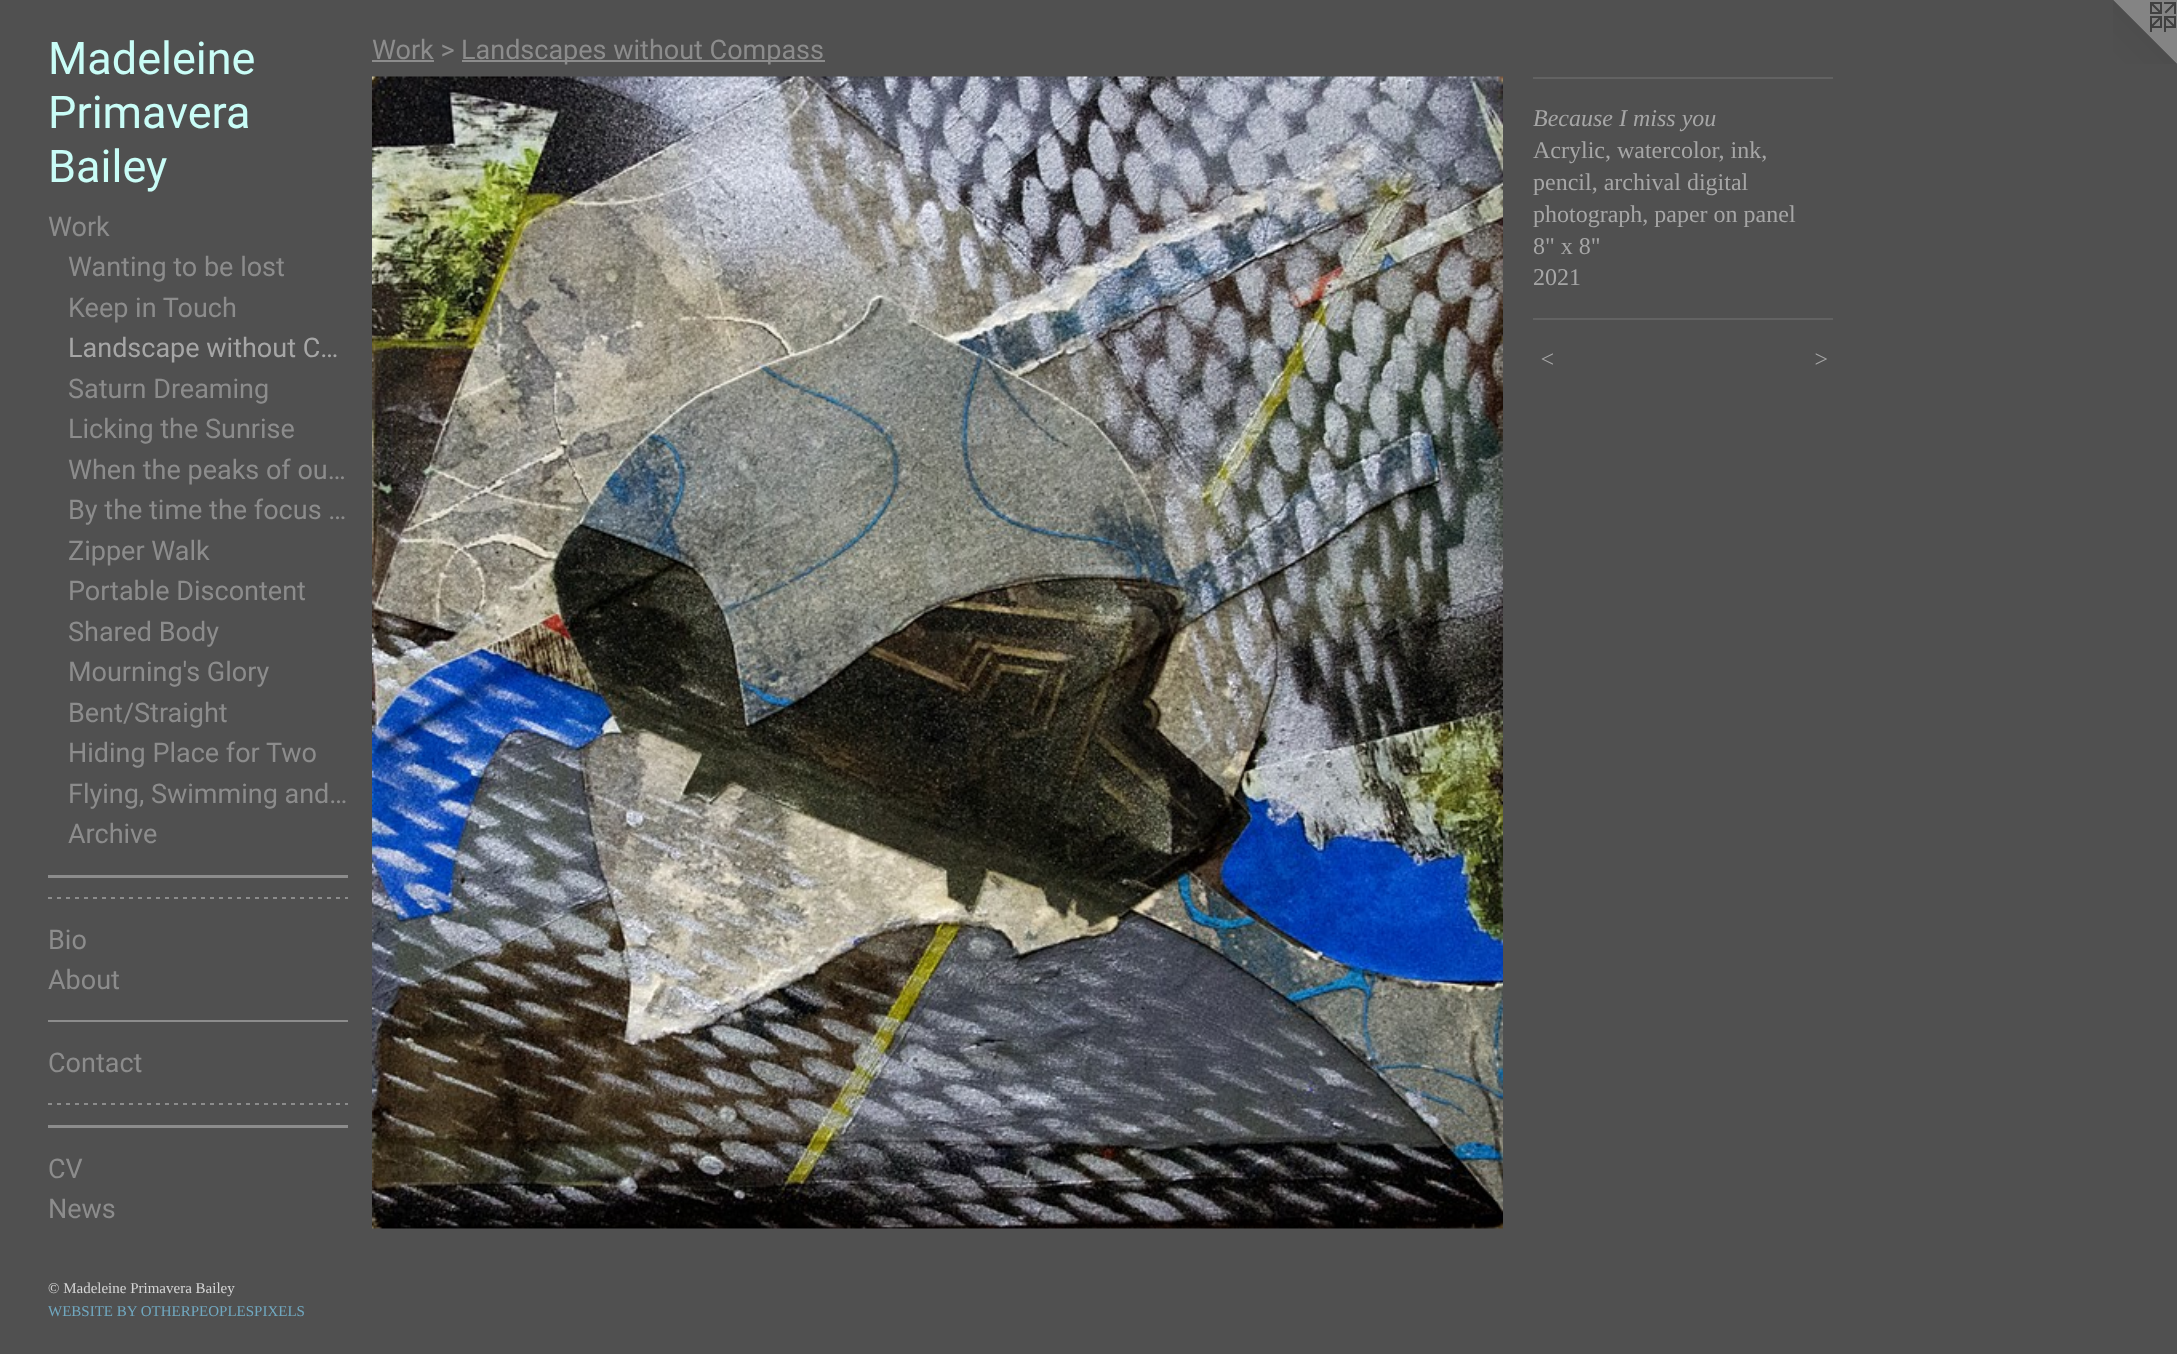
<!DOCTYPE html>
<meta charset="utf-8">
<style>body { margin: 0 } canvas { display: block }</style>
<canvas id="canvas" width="2177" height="1354"></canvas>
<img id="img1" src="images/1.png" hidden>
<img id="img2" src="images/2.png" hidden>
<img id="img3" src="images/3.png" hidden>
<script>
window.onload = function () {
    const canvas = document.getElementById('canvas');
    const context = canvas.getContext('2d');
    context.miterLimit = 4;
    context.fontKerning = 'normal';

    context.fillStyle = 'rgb(80, 80, 80)';
    context.fillRect(0, 0, 2177, 1354);
    context.fillStyle = 'rgb(140, 140, 140)';
    context.fillRect(48, 875, 300, 3);
    context.drawImage(document.getElementById('img1'), 48, 897, 300, 2);
    context.fillRect(48, 1020, 300, 2);
    context.drawImage(document.getElementById('img1'), 48, 1103, 300, 2);
    context.fillRect(48, 1125, 300, 3);
    context.fillRect(372, 60, 62, 2);
    context.fillRect(462, 60, 363, 2);
    context.drawImage(document.getElementById('img2'), 372, 76, 1131, 1153);
    context.fillStyle = 'rgb(98, 98, 98)';
    context.fillRect(1533, 77, 300, 2);
    context.fillRect(1533, 318, 300, 2);
    context.drawImage(document.getElementById('img3'), 2113, 0, 64, 64);
    context.font = '45px Roboto';
    context.fillStyle = 'rgb(201, 253, 247)';
    context.fillText('Madeleine', 48, 74);
    context.fillText('Primavera', 48, 128);
    context.fillText('Bailey', 48, 182);
    context.font = '27px Roboto';
    context.fillStyle = 'rgb(140, 140, 140)';
    context.fillText('Work', 48, 236);
    context.fillText('Wanting to be lost', 68, 276);
    context.fillText('Keep in Touch', 68, 317);
    context.fillStyle = 'rgb(166, 166, 166)';
    context.fillText('Landscape without C…', 68, 357);
    context.fillStyle = 'rgb(140, 140, 140)';
    context.fillText('Saturn Dreaming', 68, 398);
    context.fillText('Licking the Sunrise', 68, 438);
    context.fillText('When the peaks of ou…', 68, 479);
    context.fillText('By the time the focus …', 68, 519);
    context.fillText('Zipper Walk', 68, 560);
    context.fillText('Portable Discontent', 68, 600);
    context.fillText('Shared Body', 68, 641);
    context.fillText('Mourning\'s Glory', 68, 681);
    context.fillText('Bent/Straight', 68, 722);
    context.fillText('Hiding Place for Two', 68, 762);
    context.fillText('Flying, Swimming and…', 68, 803);
    context.fillText('Archive', 68, 843);
    context.fillText('Bio', 48, 949);
    context.fillText('About', 48, 989);
    context.fillText('Contact', 48, 1072);
    context.fillText('CV', 48, 1178);
    context.fillText('News', 48, 1218);
    context.font = '15px Liberation Serif';
    context.fillStyle = 'rgb(214, 214, 214)';
    context.fillText('© Madeleine Primavera Bailey', 48, 1293);
    context.fillStyle = 'rgb(112, 168, 192)';
    context.fillText('WEBSITE BY OTHERPEOPLESPIXELS', 48, 1316);
    context.font = '27px Roboto';
    context.fillStyle = 'rgb(140, 140, 140)';
    context.fillText('Work >', 372, 59);
    context.fillText('Landscapes without Compass', 461, 59);
    context.font = 'italic 24px Liberation Serif';
    context.fillStyle = 'rgb(166, 166, 166)';
    context.fillText('Because I miss you', 1533, 126);
    context.font = '24px Liberation Serif';
    context.fillText('Acrylic, watercolor, ink,', 1533, 158);
    context.fillText('pencil, archival digital', 1533, 190);
    context.fillText('photograph, paper on panel', 1533, 222);
    context.fillText('8" x 8"', 1533, 254);
    context.fillText('2021', 1533, 285);
    context.letterSpacing = '2px';
    context.font = 'italic 24px Liberation Serif';
    context.fillText('<', 1539, 367);
    context.fillText('>', 1813, 367);
};
</script>
